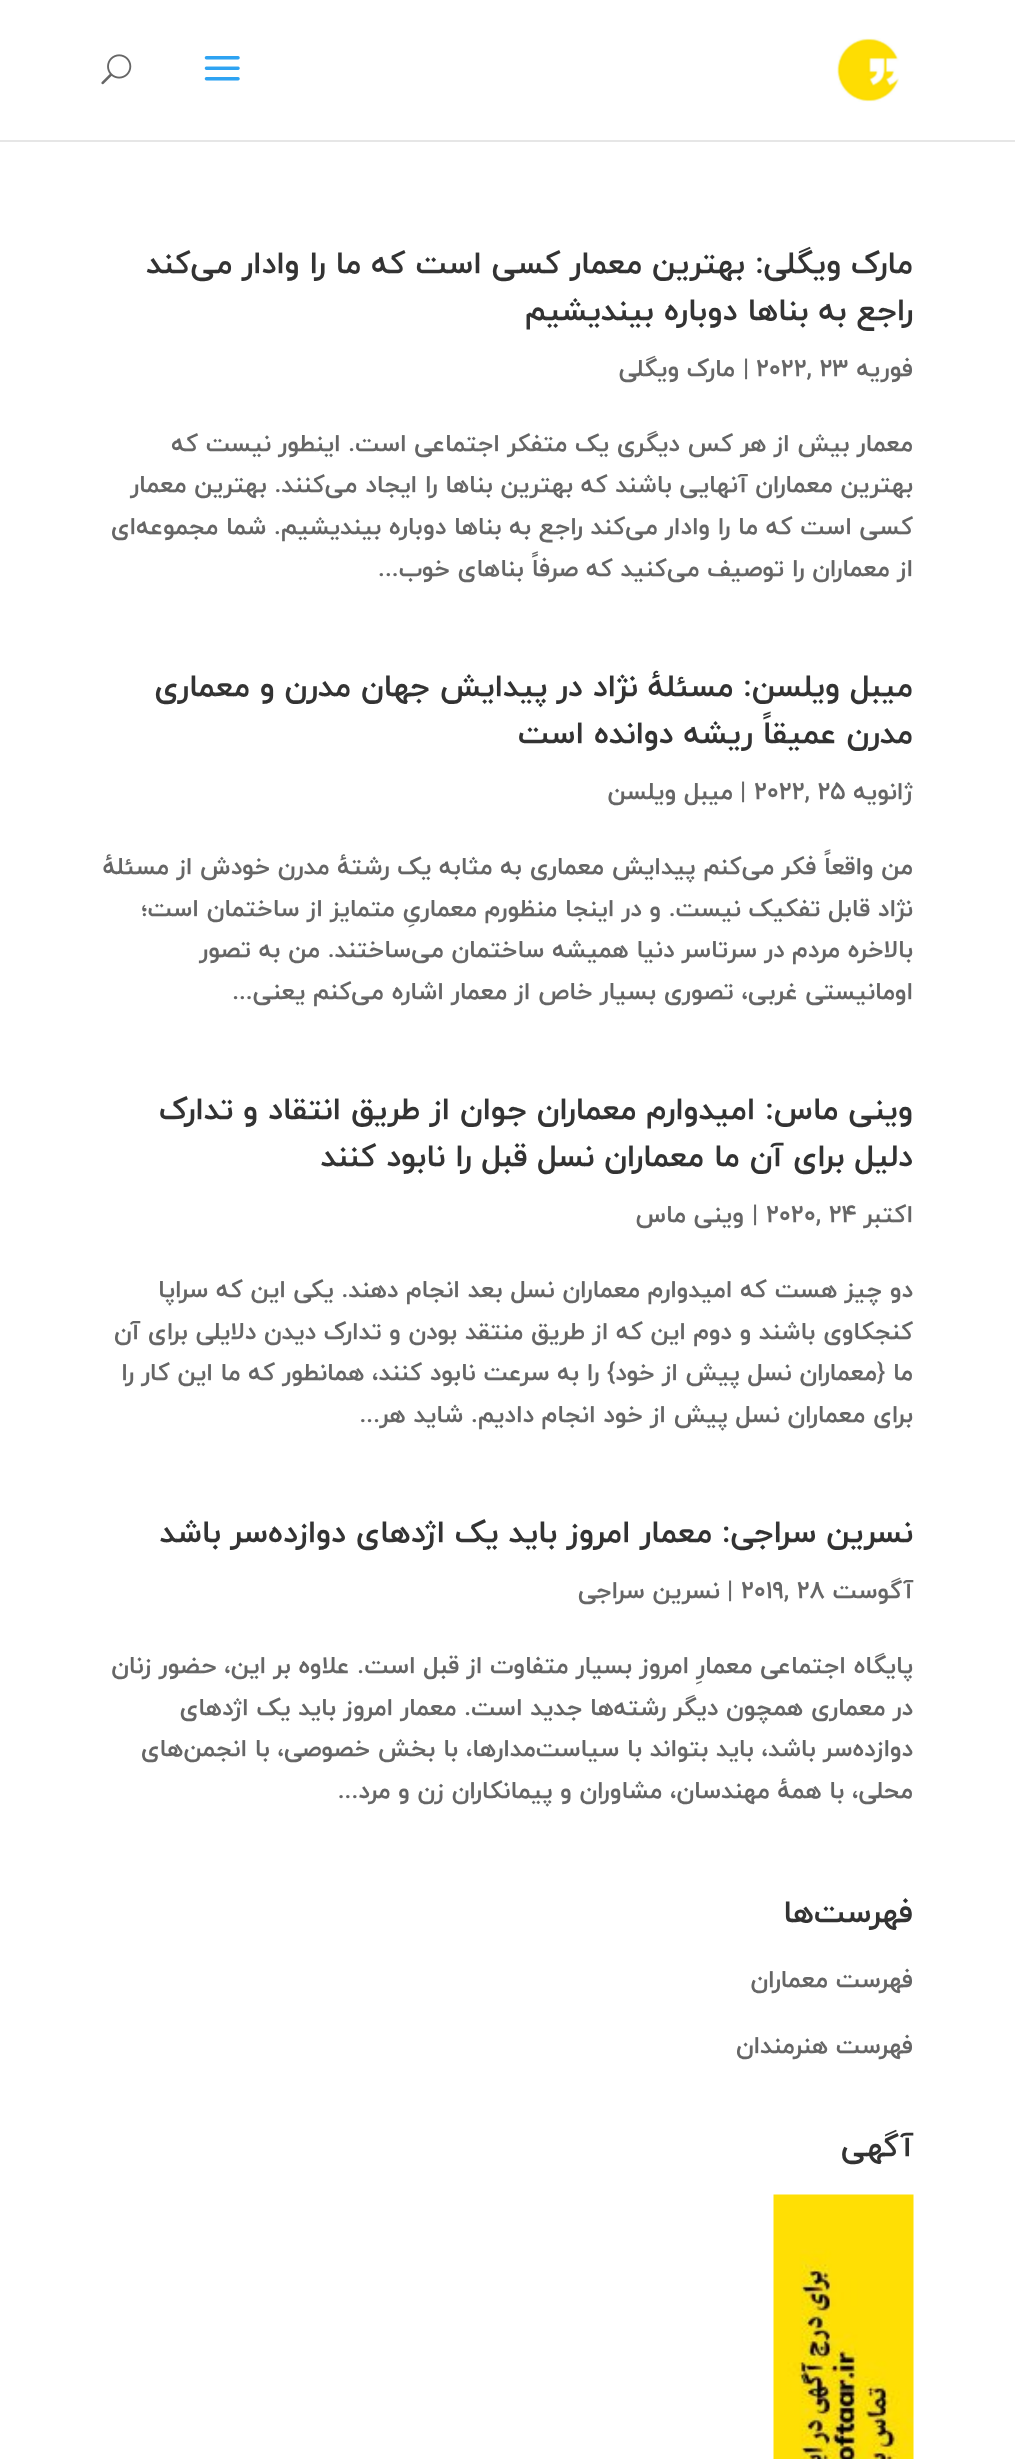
<!DOCTYPE html>
<meta charset="utf-8">
<style>body { margin: 0 } canvas { display: block }</style>
<canvas id="canvas" width="1015" height="2459"></canvas>
<img id="img1" src="images/1.png" hidden>
<img id="img2" src="images/2.png" hidden>
<img id="img3" src="images/3.png" hidden>
<img id="img4" src="images/4.png" hidden>
<script>
window.onload = function () {
    const canvas = document.getElementById('canvas');
    const context = canvas.getContext('2d');
    context.miterLimit = 4;
    context.fontKerning = 'normal';

    context.fillStyle = 'rgb(255, 255, 255)';
    context.fillRect(0, 0, 1015, 2459);
    context.fillStyle = 'rgb(230, 230, 230)';
    context.fillRect(0, 140, 1015, 2);
    context.drawImage(document.getElementById('img1'), 837, 38, 62, 64);
    context.drawImage(document.getElementById('img2'), 204, 56, 36, 25);
    context.drawImage(document.getElementById('img3'), 101, 54, 31, 31);
    context.drawImage(document.getElementById('img4'), 773, 2194, 141, 265);
    context.direction = 'rtl';
    context.font = 'bold 31.5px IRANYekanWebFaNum';
    context.fillStyle = 'rgb(51, 51, 51)';
    context.fillText('مارک ویگلی: بهترین معمار کسی است که ما را وادار می‌کند', 913, 273);
    context.fillText('راجع به بناها دوباره بیندیشیم', 913, 320);
    context.font = 'bold 24.5px IRANYekanWebFaNum';
    context.fillStyle = 'rgb(102, 102, 102)';
    context.fillText('فوریه', 913, 376);
    context.direction = 'ltr';
    context.fillText('2022, 23', 756, 376);
    context.fillText('|', 743, 376);
    context.direction = 'rtl';
    context.fillText('مارک ویگلی', 735, 376);
    context.fillText('معمار بیش از هر کس دیگری یک متفکر اجتماعی است. اینطور نیست که', 913, 451);
    context.fillText('بهترین معماران آنهایی باشند که بهترین بناها را ایجاد می‌کنند. بهترین معمار', 913, 492);
    context.fillText('کسی است که ما را وادار می‌کند راجع به بناها دوباره بیندیشیم. شما مجموعه‌ای', 913, 534);
    context.fillText('از معماران را توصیف می‌کنید که صرفاً بناهای خوب...', 913, 576);
    context.font = 'bold 31.5px IRANYekanWebFaNum';
    context.fillStyle = 'rgb(51, 51, 51)';
    context.fillText('میبل ویلسن: مسئلهٔ نژاد در پیدایش جهان مدرن و معماری', 913, 696);
    context.fillText('مدرن عمیقاً ریشه دوانده است', 913, 743);
    context.font = 'bold 24.5px IRANYekanWebFaNum';
    context.fillStyle = 'rgb(102, 102, 102)';
    context.fillText('ژانویه', 913, 799);
    context.direction = 'ltr';
    context.fillText('2022, 25', 754, 799);
    context.fillText('|', 740, 799);
    context.direction = 'rtl';
    context.fillText('میبل ویلسن', 733, 799);
    context.fillText('من واقعاً فکر می‌کنم پیدایش معماری به مثابه یک رشتهٔ مدرن خودش از مسئلهٔ', 913, 874);
    context.fillText('نژاد قابل تفکیک نیست. و در اینجا منظورم معماریِ متمایز از ساختمان است؛', 913, 916);
    context.fillText('بالاخره مردم در سرتاسر دنیا همیشه ساختمان می‌ساختند. من به تصور', 913, 957);
    context.fillText('اومانیستی غربی، تصوری بسیار خاص از معمار اشاره می‌کنم یعنی...', 913, 999);
    context.font = 'bold 31.5px IRANYekanWebFaNum';
    context.fillStyle = 'rgb(51, 51, 51)';
    context.fillText('وینی ماس: امیدوارم معماران جوان از طریق انتقاد و تدارک', 913, 1119);
    context.fillText('دلیل برای آن ما معماران نسل قبل را نابود کنند', 913, 1166);
    context.font = 'bold 24.5px IRANYekanWebFaNum';
    context.fillStyle = 'rgb(102, 102, 102)';
    context.fillText('اکتبر', 913, 1222);
    context.direction = 'ltr';
    context.fillText('2020, 24', 766, 1222);
    context.fillText('|', 752, 1222);
    context.direction = 'rtl';
    context.fillText('وینی ماس', 744, 1222);
    context.fillText('دو چیز هست که امیدوارم معماران نسل بعد انجام دهند. یکی این که سراپا', 913, 1297);
    context.fillText('کنجکاوی باشند و دوم این که از طریق منتقد بودن و تدارک دیدن دلایلی برای آن', 913, 1339);
    context.fillText('ما {معماران نسل پیش از خود} را به سرعت نابود کنند، همانطور که ما این کار را', 913, 1380);
    context.fillText('برای معماران نسل پیش از خود انجام دادیم. شاید هر...', 913, 1422);
    context.font = 'bold 31.5px IRANYekanWebFaNum';
    context.fillStyle = 'rgb(51, 51, 51)';
    context.fillText('نسرین سراجی: معمار امروز باید یک اژدهای دوازده‌سر باشد', 913, 1542);
    context.font = 'bold 24.5px IRANYekanWebFaNum';
    context.fillStyle = 'rgb(102, 102, 102)';
    context.fillText('آگوست', 913, 1598);
    context.direction = 'ltr';
    context.fillText('2019, 28', 741, 1598);
    context.fillText('|', 727, 1598);
    context.direction = 'rtl';
    context.fillText('نسرین سراجی', 720, 1598);
    context.fillText('پایگاه اجتماعی معمارِ امروز بسیار متفاوت از قبل است. علاوه بر این، حضور زنان', 913, 1673);
    context.fillText('در معماری همچون دیگر رشته‌ها جدید است. معمار امروز باید یک اژدهای', 913, 1715);
    context.fillText('دوازده‌سر باشد، باید بتواند با سیاست‌مدارها، با بخش خصوصی، با انجمن‌های', 913, 1756);
    context.fillText('محلی، با همهٔ مهندسان، مشاوران و پیمانکاران زن و مرد...', 913, 1798);
    context.font = 'bold 31.5px IRANYekanWebFaNum';
    context.fillStyle = 'rgb(51, 51, 51)';
    context.fillText('فهرست‌ها', 913, 1922);
    context.font = 'bold 24.5px IRANYekanWebFaNum';
    context.fillStyle = 'rgb(102, 102, 102)';
    context.fillText('فهرست معماران', 913, 1987);
    context.fillText('فهرست هنرمندان', 913, 2053);
    context.font = 'bold 31.5px IRANYekanWebFaNum';
    context.fillStyle = 'rgb(51, 51, 51)';
    context.fillText('آگهی', 913, 2156);
};
</script>
